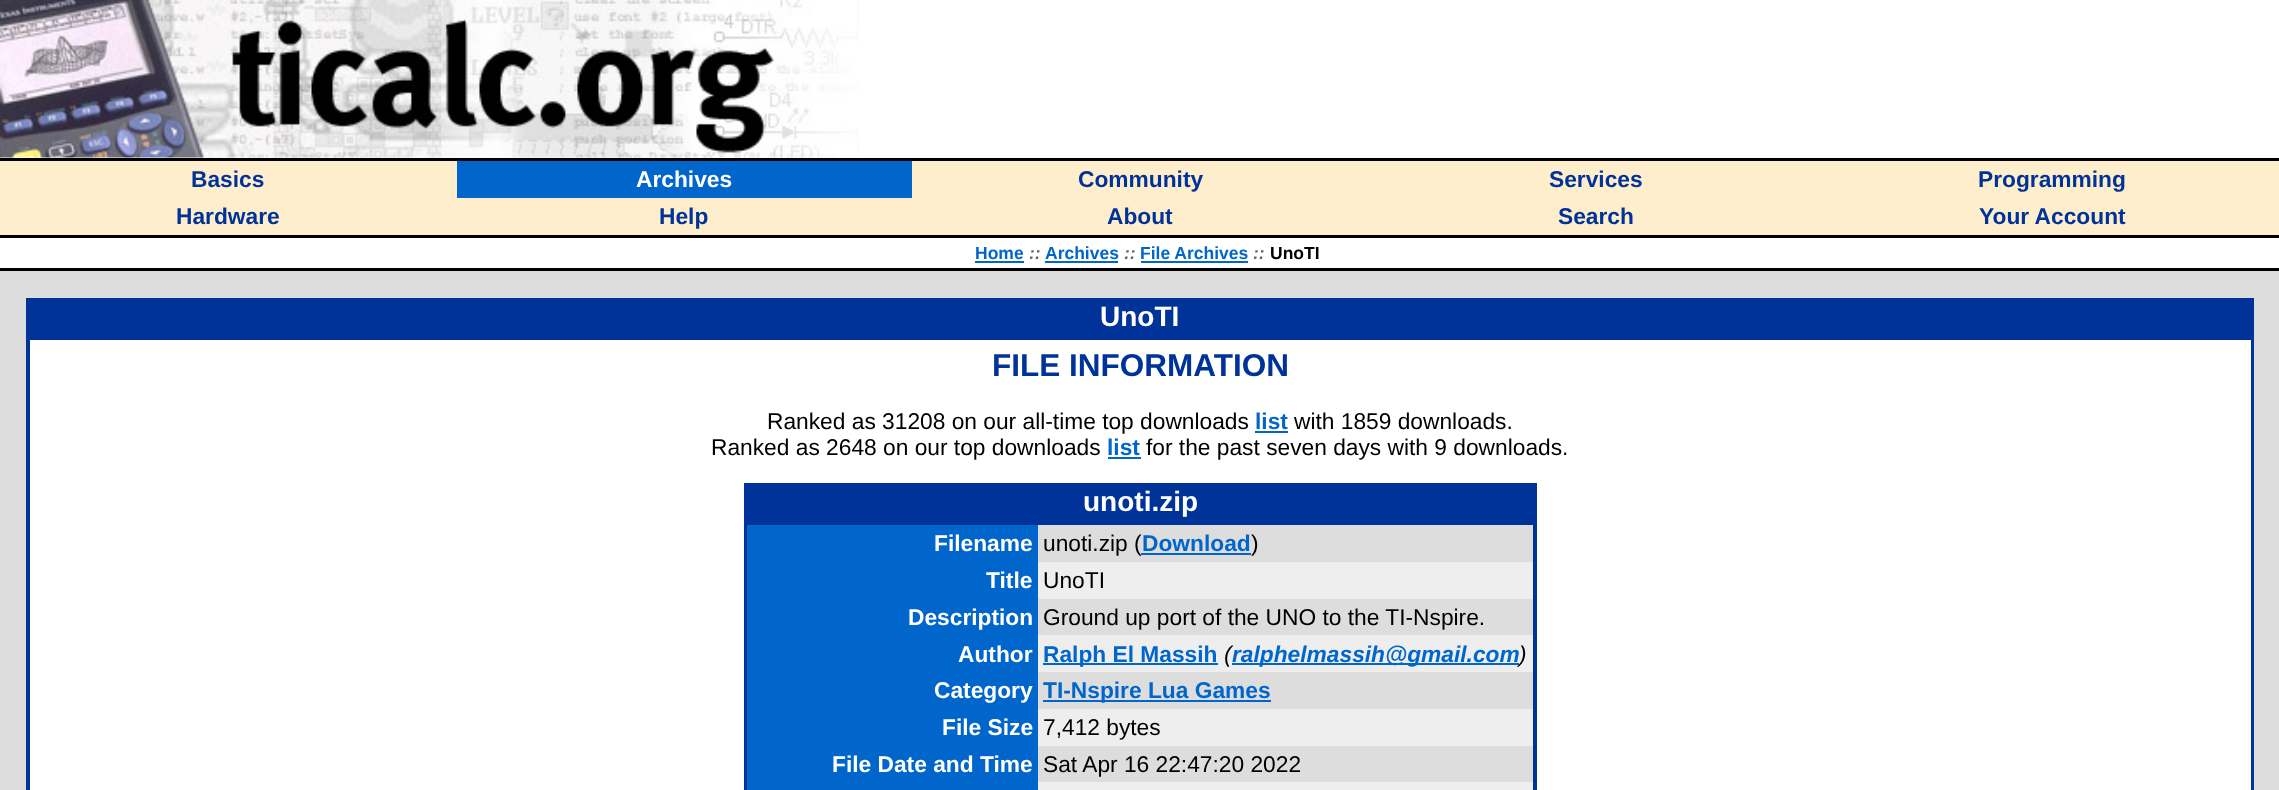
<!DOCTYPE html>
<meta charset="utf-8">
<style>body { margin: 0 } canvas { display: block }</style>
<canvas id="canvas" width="2279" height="790"></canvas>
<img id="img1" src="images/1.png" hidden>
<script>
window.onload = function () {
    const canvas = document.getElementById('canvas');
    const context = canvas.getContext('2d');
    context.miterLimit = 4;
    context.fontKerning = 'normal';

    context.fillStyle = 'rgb(255, 255, 255)';
    context.fillRect(0, 0, 2279, 790);
    context.drawImage(document.getElementById('img1'), 0, 0, 859, 158);
    context.fillStyle = 'rgb(0, 0, 0)';
    context.fillRect(0, 158, 2279, 3);
    context.fillStyle = 'rgb(255, 238, 204)';
    context.fillRect(0, 161, 2279, 74);
    context.fillStyle = 'rgb(0, 102, 204)';
    context.fillRect(457, 161, 455, 37);
    context.fillStyle = 'rgb(0, 0, 0)';
    context.fillRect(0, 235, 2279, 3);
    context.fillStyle = 'rgb(0, 102, 204)';
    context.fillRect(975, 261, 49, 2);
    context.fillRect(1045, 261, 73, 2);
    context.fillRect(1141, 261, 107, 2);
    context.fillStyle = 'rgb(0, 0, 0)';
    context.fillRect(0, 268, 2279, 3);
    context.fillStyle = 'rgb(221, 221, 221)';
    context.fillRect(0, 271, 2279, 519);
    context.fillStyle = 'rgb(0, 51, 153)';
    context.fillRect(26, 298, 2228, 492);
    context.fillStyle = 'rgb(255, 255, 255)';
    context.fillRect(30, 340, 2221, 450);
    context.fillStyle = 'rgb(0, 102, 204)';
    context.fillRect(1255, 431, 33, 2);
    context.fillRect(1108, 457, 33, 2);
    context.fillStyle = 'rgb(0, 51, 153)';
    context.fillRect(744, 483, 793, 307);
    context.fillStyle = 'rgb(0, 102, 204)';
    context.fillRect(747, 525, 291, 265);
    context.fillStyle = 'rgb(221, 221, 221)';
    context.fillRect(1038, 525, 495, 37);
    context.fillStyle = 'rgb(238, 238, 238)';
    context.fillRect(1038, 562, 495, 37);
    context.fillStyle = 'rgb(221, 221, 221)';
    context.fillRect(1038, 599, 495, 36);
    context.fillStyle = 'rgb(238, 238, 238)';
    context.fillRect(1038, 635, 495, 37);
    context.fillStyle = 'rgb(0, 102, 204)';
    context.fillRect(1043, 663, 175, 2);
    context.fillStyle = 'rgb(221, 221, 221)';
    context.fillRect(1038, 672, 495, 37);
    context.fillStyle = 'rgb(0, 102, 204)';
    context.fillRect(1043, 700, 228, 2);
    context.fillStyle = 'rgb(238, 238, 238)';
    context.fillRect(1038, 709, 495, 37);
    context.fillStyle = 'rgb(221, 221, 221)';
    context.fillRect(1038, 746, 495, 36);
    context.fillStyle = 'rgb(238, 238, 238)';
    context.fillRect(1038, 782, 495, 8);
    context.font = 'bold 22.75px Liberation Sans';
    context.fillStyle = 'rgb(0, 51, 153)';
    context.fillText('Basics', 191, 187);
    context.fillStyle = 'rgb(255, 255, 255)';
    context.fillText('Archives', 636, 187);
    context.fillStyle = 'rgb(0, 51, 153)';
    context.fillText('Community', 1078, 187);
    context.fillText('Services', 1549, 187);
    context.fillText('Programming', 1978, 187);
    context.fillText('Hardware', 176, 224);
    context.fillText('Help', 659, 224);
    context.fillText('About', 1107, 224);
    context.fillText('Search', 1558, 224);
    context.fillText('Your Account', 1979, 224);
    context.font = 'bold 17.5px Liberation Sans';
    context.fillStyle = 'rgb(0, 102, 204)';
    context.fillText('Home', 975, 259);
    context.font = 'italic bold 17.5px Liberation Sans';
    context.fillStyle = 'rgb(102, 102, 102)';
    context.fillText('::', 1029, 259);
    context.font = 'bold 17.5px Liberation Sans';
    context.fillStyle = 'rgb(0, 102, 204)';
    context.fillText('Archives', 1045, 259);
    context.font = 'italic bold 17.5px Liberation Sans';
    context.fillStyle = 'rgb(102, 102, 102)';
    context.fillText('::', 1124, 259);
    context.font = 'bold 17.5px Liberation Sans';
    context.fillStyle = 'rgb(0, 102, 204)';
    context.fillText('File Archives', 1140, 259);
    context.font = 'italic bold 17.5px Liberation Sans';
    context.fillStyle = 'rgb(102, 102, 102)';
    context.fillText('::', 1253, 259);
    context.font = 'bold 17.5px Liberation Sans';
    context.fillStyle = 'rgb(0, 0, 0)';
    context.fillText('UnoTI', 1270, 259);
    context.font = 'bold 28px Liberation Sans';
    context.fillStyle = 'rgb(255, 255, 255)';
    context.fillText('UnoTI', 1100, 326);
    context.font = 'bold 31.5px Liberation Sans';
    context.fillStyle = 'rgb(0, 51, 153)';
    context.fillText('FILE INFORMATION', 992, 376);
    context.font = '22.75px Liberation Sans';
    context.fillStyle = 'rgb(0, 0, 0)';
    context.fillText('Ranked as 31208 on our all-time top downloads', 767, 429);
    context.font = 'bold 22.75px Liberation Sans';
    context.fillStyle = 'rgb(0, 102, 204)';
    context.fillText('list', 1255, 429);
    context.font = '22.75px Liberation Sans';
    context.fillStyle = 'rgb(0, 0, 0)';
    context.fillText('with 1859 downloads.', 1294, 429);
    context.fillText('Ranked as 2648 on our top downloads', 711, 455);
    context.font = 'bold 22.75px Liberation Sans';
    context.fillStyle = 'rgb(0, 102, 204)';
    context.fillText('list', 1107, 455);
    context.font = '22.75px Liberation Sans';
    context.fillStyle = 'rgb(0, 0, 0)';
    context.fillText('for the past seven days with 9 downloads.', 1146, 455);
    context.font = 'bold 28px Liberation Sans';
    context.fillStyle = 'rgb(255, 255, 255)';
    context.fillText('unoti.zip', 1083, 511);
    context.font = 'bold 22.75px Liberation Sans';
    context.fillText('Filename', 934, 551);
    context.font = '22.75px Liberation Sans';
    context.fillStyle = 'rgb(0, 0, 0)';
    context.fillText('unoti.zip (', 1043, 551);
    context.fillStyle = 'rgb(0, 102, 204)';
    context.fillRect(1141, 553, 110, 2);
    context.font = 'bold 22.75px Liberation Sans';
    context.fillText('Download', 1142, 551);
    context.font = '22.75px Liberation Sans';
    context.fillStyle = 'rgb(0, 0, 0)';
    context.fillText(')', 1251, 551);
    context.font = 'bold 22.75px Liberation Sans';
    context.fillStyle = 'rgb(255, 255, 255)';
    context.fillText('Title', 986, 588);
    context.font = '22.75px Liberation Sans';
    context.fillStyle = 'rgb(0, 0, 0)';
    context.fillText('UnoTI', 1043, 588);
    context.font = 'bold 22.75px Liberation Sans';
    context.fillStyle = 'rgb(255, 255, 255)';
    context.fillText('Description', 908, 625);
    context.font = '22.75px Liberation Sans';
    context.fillStyle = 'rgb(0, 0, 0)';
    context.fillText('Ground up port of the UNO to the TI-Nspire.', 1043, 625);
    context.font = 'bold 22.75px Liberation Sans';
    context.fillStyle = 'rgb(255, 255, 255)';
    context.fillText('Author', 958, 662);
    context.fillStyle = 'rgb(0, 102, 204)';
    context.fillText('Ralph El Massih', 1043, 662);
    context.font = 'italic 22.75px Liberation Sans';
    context.fillStyle = 'rgb(0, 0, 0)';
    context.fillText('(', 1224, 662);
    context.fillStyle = 'rgb(0, 102, 204)';
    context.fillRect(1232, 663, 287, 2);
    context.font = 'italic bold 22.75px Liberation Sans';
    context.fillText('ralphelmassih@gmail.com', 1232, 662);
    context.font = 'italic 22.75px Liberation Sans';
    context.fillStyle = 'rgb(0, 0, 0)';
    context.fillText(')', 1519, 662);
    context.font = 'bold 22.75px Liberation Sans';
    context.fillStyle = 'rgb(255, 255, 255)';
    context.fillText('Category', 934, 698);
    context.fillStyle = 'rgb(0, 102, 204)';
    context.fillText('TI-Nspire Lua Games', 1043, 698);
    context.fillStyle = 'rgb(255, 255, 255)';
    context.fillText('File Size', 942, 735);
    context.font = '22.75px Liberation Sans';
    context.fillStyle = 'rgb(0, 0, 0)';
    context.fillText('7,412 bytes', 1043, 735);
    context.font = 'bold 22.75px Liberation Sans';
    context.fillStyle = 'rgb(255, 255, 255)';
    context.fillText('File Date and Time', 832, 772);
    context.font = '22.75px Liberation Sans';
    context.fillStyle = 'rgb(0, 0, 0)';
    context.fillText('Sat Apr 16 22:47:20 2022', 1043, 772);
};
</script>
